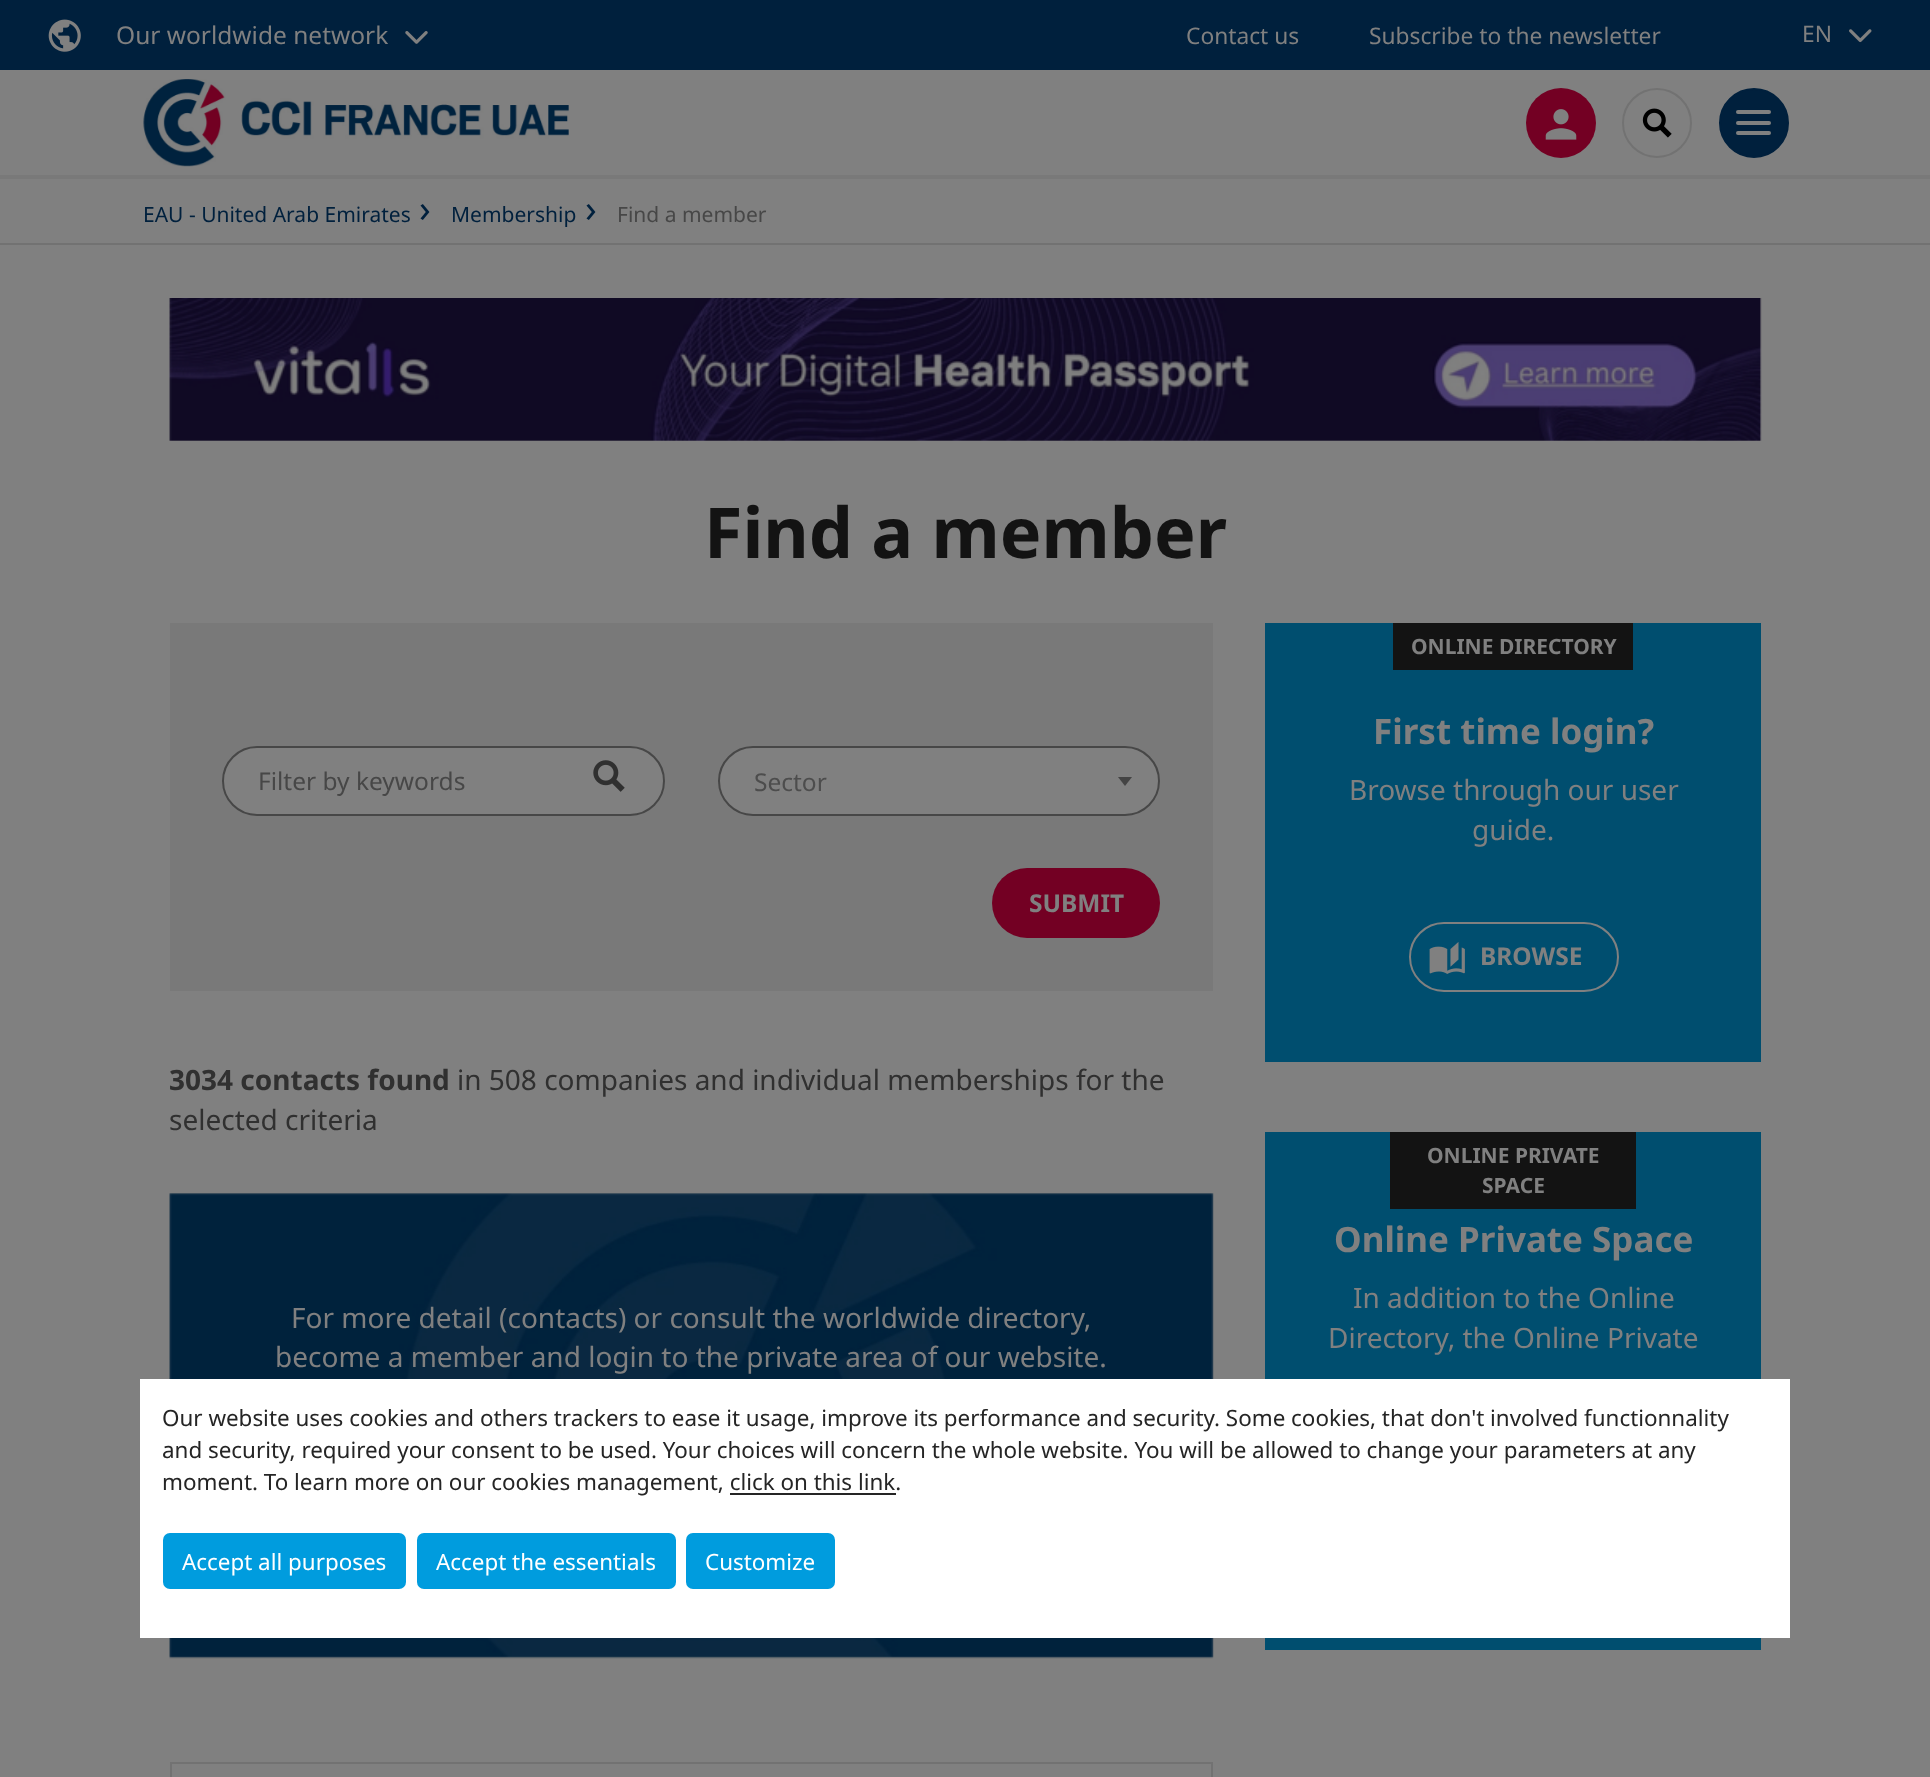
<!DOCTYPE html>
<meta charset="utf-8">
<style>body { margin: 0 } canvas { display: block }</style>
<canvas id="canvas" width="1930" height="1777"></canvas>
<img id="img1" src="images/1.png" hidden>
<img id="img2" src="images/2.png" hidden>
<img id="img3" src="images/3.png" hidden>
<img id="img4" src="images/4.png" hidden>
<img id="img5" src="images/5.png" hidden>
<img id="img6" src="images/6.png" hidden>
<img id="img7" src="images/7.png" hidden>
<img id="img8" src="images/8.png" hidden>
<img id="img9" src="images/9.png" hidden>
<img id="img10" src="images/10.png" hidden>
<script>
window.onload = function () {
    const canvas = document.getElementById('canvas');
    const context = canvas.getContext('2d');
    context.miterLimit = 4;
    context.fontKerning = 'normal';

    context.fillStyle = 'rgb(128, 128, 128)';
    context.fillRect(0, 0, 1930, 1777);
    context.fillStyle = 'rgb(121, 121, 121)';
    context.fillRect(0, 175, 1930, 4);
    context.fillStyle = 'rgb(0, 32, 61)';
    context.fillRect(0, 0, 1930, 70);
    context.drawImage(document.getElementById('img1'), 48, 19, 33, 33);
    context.drawImage(document.getElementById('img2'), 405, 31, 23, 13);
    context.drawImage(document.getElementById('img3'), 1849, 29, 23, 14);
    context.drawImage(document.getElementById('img4'), 143, 79, 426, 88);
    context.fillStyle = 'rgb(115, 0, 35)';
    context.beginPath();
    context.arc(1561, 123, 35, 0, 2 * Math.PI);
    context.fill();
    context.drawImage(document.getElementById('img5'), 1545, 109, 32, 31);
    context.beginPath();
    context.arc(1657, 123, 34, 0, 2 * Math.PI);
    context.strokeStyle = 'rgb(114, 114, 114)';
    context.lineWidth = 2;
    context.stroke();
    context.drawImage(document.getElementById('img6'), 1642, 108, 30, 30);
    context.fillStyle = 'rgb(0, 32, 61)';
    context.beginPath();
    context.arc(1754, 123, 34, 0, 2 * Math.PI);
    context.fill();
    context.strokeStyle = 'rgb(0, 32, 61)';
    context.stroke();
    context.fillStyle = 'rgb(128, 128, 128)';
    context.beginPath();
    context.roundRect(1736, 110, 35, 4, 2);
    context.fill();
    context.beginPath();
    context.roundRect(1736, 121, 35, 4, 2);
    context.fill();
    context.beginPath();
    context.roundRect(1736, 131, 35, 4, 2);
    context.fill();
    context.fillStyle = 'rgb(114, 114, 114)';
    context.fillRect(0, 243, 1930, 2);
    context.drawImage(document.getElementById('img7'), 169, 298, 1593, 143);
    context.fillStyle = 'rgb(121, 121, 121)';
    context.fillRect(170, 623, 1043, 368);
    context.fillStyle = 'rgb(128, 128, 128)';
    context.beginPath();
    context.roundRect(223, 747, 441, 68, 34);
    context.fill();
    context.strokeStyle = 'rgb(71, 71, 71)';
    context.stroke();
    context.drawImage(document.getElementById('img8'), 593, 760, 32, 32);
    context.beginPath();
    context.roundRect(719, 747, 440, 68, 34);
    context.fill();
    context.stroke();
    context.fillStyle = 'rgb(68, 68, 68)';
    context.beginPath();
    context.moveTo(1118, 777);
    context.lineTo(1132, 777);
    context.lineTo(1125, 786);
    context.closePath();
    context.fill();
    context.fillStyle = 'rgb(115, 0, 35)';
    context.beginPath();
    context.roundRect(992, 868, 168, 70, 35);
    context.fill();
    context.drawImage(document.getElementById('img9'), 169, 1193, 1045, 466);
    context.strokeStyle = 'rgb(114, 114, 114)';
    context.strokeRect(171, 1763, 1041, 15);
    context.fillStyle = 'rgb(0, 78, 111)';
    context.fillRect(1265, 623, 496, 439);
    context.fillStyle = 'rgb(19, 19, 19)';
    context.fillRect(1393, 623, 240, 47);
    context.beginPath();
    context.roundRect(1410, 923, 208, 68, 34);
    context.strokeStyle = 'rgb(128, 128, 128)';
    context.stroke();
    context.drawImage(document.getElementById('img10'), 1429, 942, 36, 32);
    context.fillStyle = 'rgb(0, 78, 111)';
    context.fillRect(1265, 1132, 496, 518);
    context.fillStyle = 'rgb(19, 19, 19)';
    context.fillRect(1390, 1132, 246, 77);
    context.fillStyle = 'rgb(255, 255, 255)';
    context.fillRect(140, 1379, 1650, 259);
    context.fillStyle = 'rgb(37, 37, 37)';
    context.fillRect(730, 1493, 166, 2);
    context.fillStyle = 'rgb(0, 156, 222)';
    context.beginPath();
    context.roundRect(163, 1533, 243, 56, 7);
    context.fill();
    context.beginPath();
    context.roundRect(417, 1533, 259, 56, 7);
    context.fill();
    context.beginPath();
    context.roundRect(686, 1533, 149, 56, 7);
    context.fill();
    context.font = '24.5px Noto Sans';
    context.fillStyle = 'rgb(128, 128, 128)';
    context.fillText('Our worldwide network', 116, 44);
    context.font = '22.75px Noto Sans';
    context.fillText('Contact us', 1186, 44);
    context.fillText('Subscribe to the newsletter', 1369, 44);
    context.fillText('EN', 1802, 42);
    context.font = '21px Noto Sans';
    context.fillStyle = 'rgb(0, 32, 61)';
    context.fillText('EAU - United Arab Emirates', 143, 222);
    context.font = '38px Noto Sans';
    context.fillText('›', 419, 222);
    context.font = '21px Noto Sans';
    context.fillText('Membership', 451, 222);
    context.font = '38px Noto Sans';
    context.fillText('›', 585, 222);
    context.font = '21px Noto Sans';
    context.fillStyle = 'rgb(71, 71, 71)';
    context.fillText('Find a member', 617, 222);
    context.font = 'bold 70px Noto Sans';
    context.fillStyle = 'rgb(19, 19, 19)';
    context.fillText('Find a member', 704, 558);
    context.font = '24.5px Noto Sans';
    context.fillStyle = 'rgb(71, 71, 71)';
    context.fillText('Filter by keywords', 258, 790);
    context.fillStyle = 'rgb(77, 77, 77)';
    context.fillText('Sector', 754, 791);
    context.font = 'bold 24.5px Noto Sans';
    context.fillStyle = 'rgb(128, 128, 128)';
    context.fillText('SUBMIT', 1029, 912);
    context.font = 'bold 28px Noto Sans';
    context.fillStyle = 'rgb(48, 48, 48)';
    context.fillText('3034 contacts found', 169, 1090);
    context.font = '28px Noto Sans';
    context.fillText('in 508 companies and individual memberships for the', 457, 1090);
    context.fillText('selected criteria', 169, 1130);
    context.fillStyle = 'rgb(128, 128, 128)';
    context.fillText('For more detail (contacts) or consult the worldwide directory,', 291, 1328);
    context.fillText('become a member and login to the private area of our website.', 275, 1367);
    context.font = 'bold 21px Noto Sans';
    context.fillText('ONLINE DIRECTORY', 1411, 654);
    context.font = 'bold 35px Noto Sans';
    context.fillText('First time login?', 1373, 744);
    context.font = '28px Noto Sans';
    context.fillText('Browse through our user', 1349, 800);
    context.fillText('guide.', 1472, 840);
    context.font = 'bold 24.5px Noto Sans';
    context.fillText('BROWSE', 1480, 965);
    context.font = 'bold 21px Noto Sans';
    context.fillText('ONLINE PRIVATE', 1427, 1163);
    context.fillText('SPACE', 1482, 1193);
    context.font = 'bold 35px Noto Sans';
    context.fillText('Online Private Space', 1334, 1252);
    context.font = '28px Noto Sans';
    context.fillText('In addition to the Online', 1353, 1308);
    context.fillText('Directory, the Online Private', 1328, 1348);
    context.font = '22.4px Noto Sans';
    context.fillStyle = 'rgb(37, 37, 37)';
    context.fillText('Our website uses cookies and others trackers to ease it usage, improve its performance and security. Some cookies, that don\'t involved functionnality', 162, 1426);
    context.fillText('and security, required your consent to be used. Your choices will concern the whole website. You will be allowed to change your parameters at any', 162, 1458);
    context.fillText('moment. To learn more on our cookies management, click on this link.', 162, 1490);
    context.fillStyle = 'rgb(255, 255, 255)';
    context.fillText('Accept all purposes', 182, 1570);
    context.fillText('Accept the essentials', 436, 1570);
    context.fillText('Customize', 705, 1570);
};
</script>
